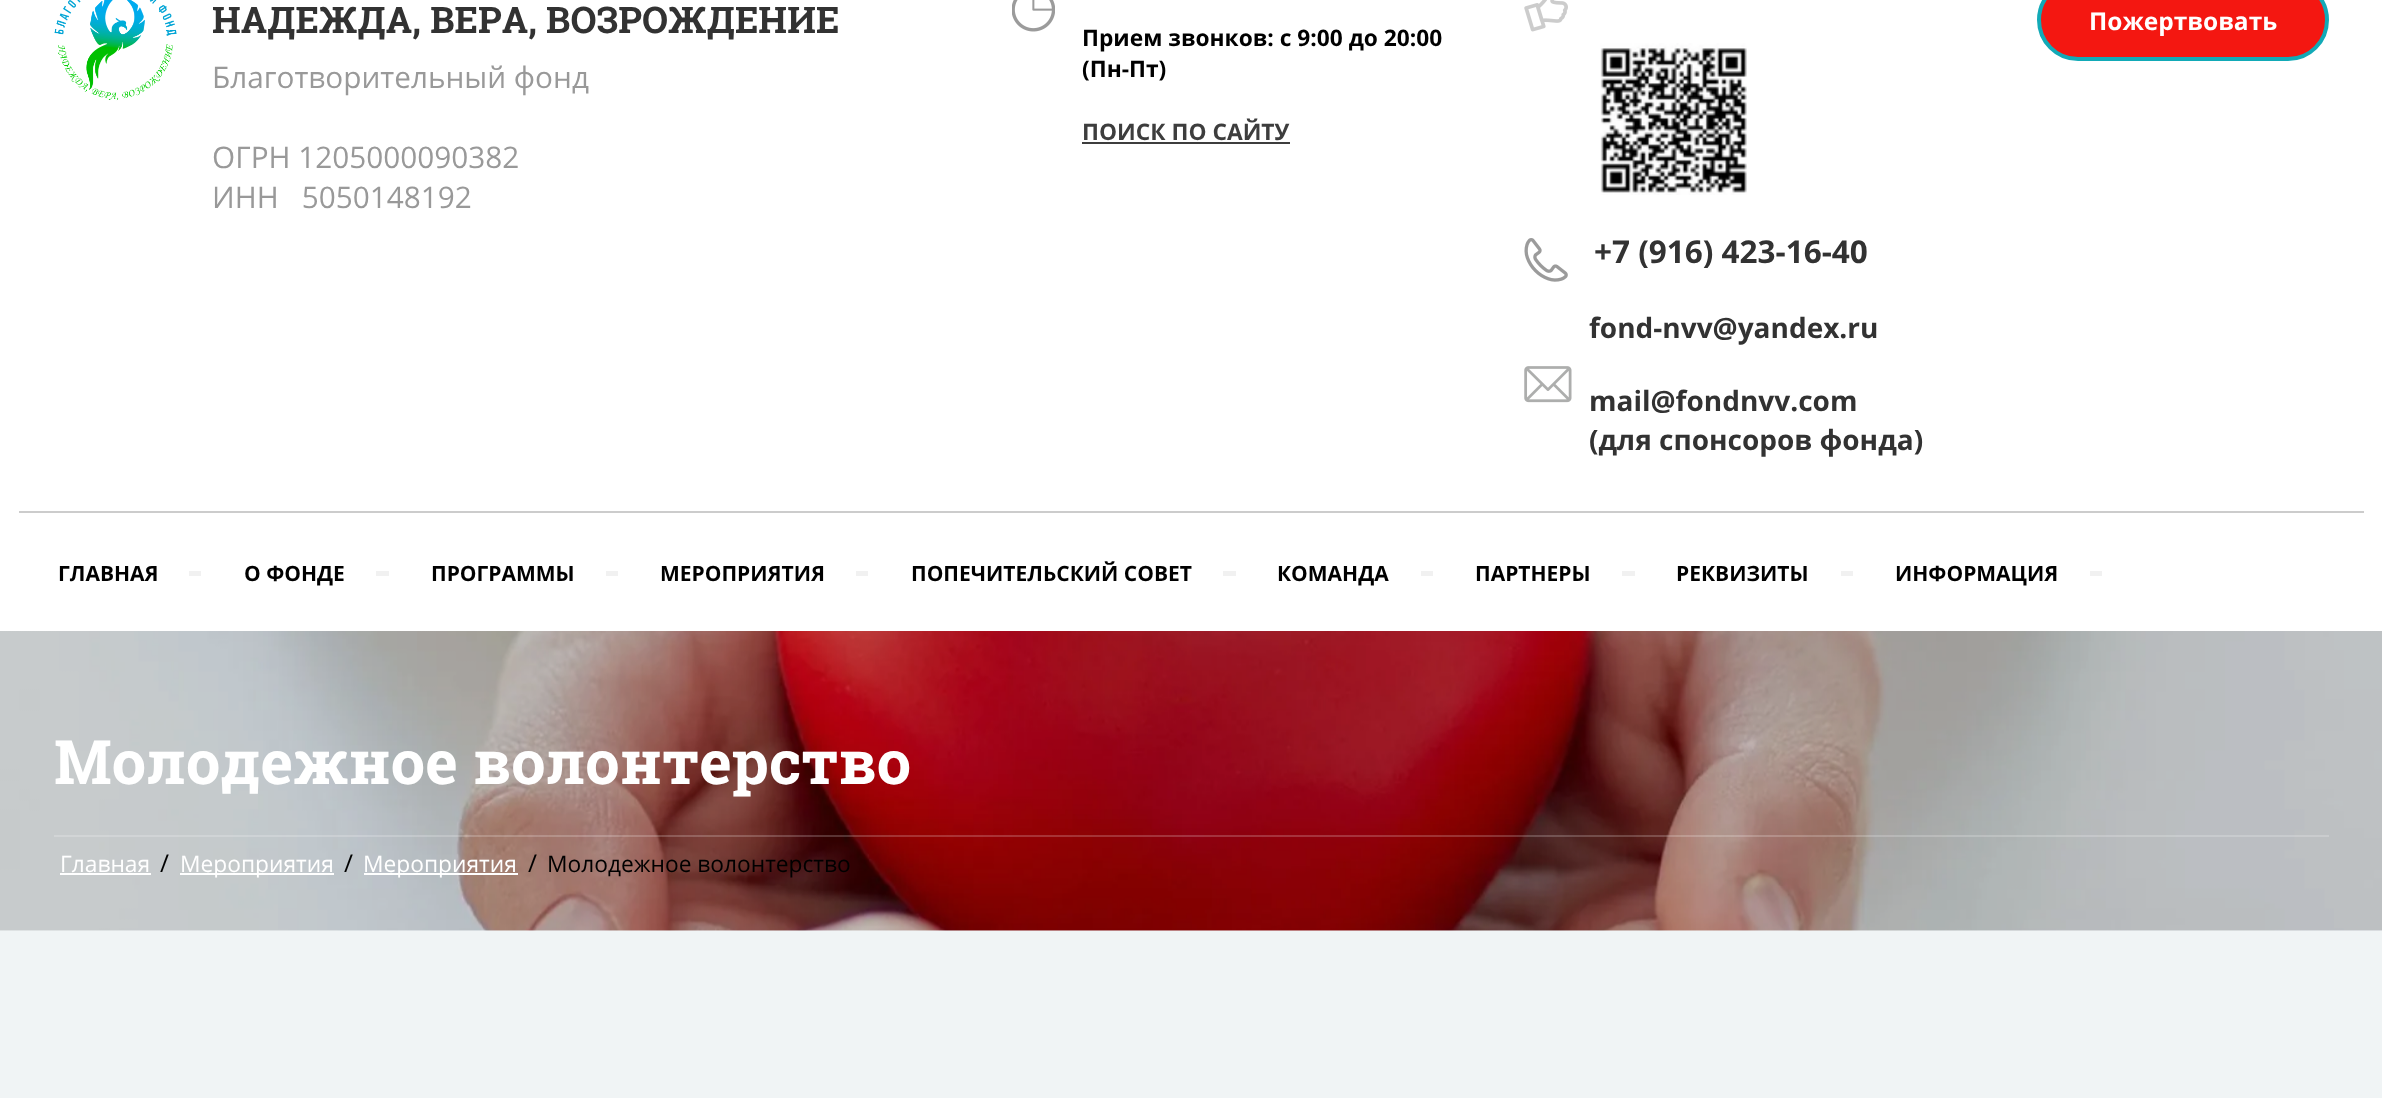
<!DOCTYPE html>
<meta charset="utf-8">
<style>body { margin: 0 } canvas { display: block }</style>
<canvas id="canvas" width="2382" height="1098"></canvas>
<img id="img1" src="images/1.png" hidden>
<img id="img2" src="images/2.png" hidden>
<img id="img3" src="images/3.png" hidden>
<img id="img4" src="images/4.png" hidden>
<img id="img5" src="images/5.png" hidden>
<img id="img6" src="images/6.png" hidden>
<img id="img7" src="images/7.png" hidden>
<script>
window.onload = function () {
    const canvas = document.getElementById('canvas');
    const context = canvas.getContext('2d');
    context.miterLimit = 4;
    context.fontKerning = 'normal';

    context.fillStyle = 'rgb(255, 255, 255)';
    context.fillRect(0, 0, 2382, 1098);
    context.drawImage(document.getElementById('img1'), 54, 0, 123, 101);
    context.fillStyle = 'rgb(244, 23, 17)';
    context.beginPath();
    context.roundRect(2039, -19, 288, 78, 39);
    context.fill();
    context.strokeStyle = 'rgb(18, 170, 183)';
    context.lineWidth = 4;
    context.stroke();
    context.drawImage(document.getElementById('img2'), 1012, 0, 43, 32);
    context.fillStyle = 'rgb(61, 61, 61)';
    context.fillRect(1082, 142, 208, 2);
    context.drawImage(document.getElementById('img3'), 1524, 0, 44, 32);
    context.drawImage(document.getElementById('img4'), 1600, 43, 147, 152);
    context.drawImage(document.getElementById('img5'), 1524, 238, 44, 44);
    context.drawImage(document.getElementById('img6'), 1524, 366, 48, 37);
    context.fillStyle = 'rgb(204, 204, 204)';
    context.fillRect(19, 511, 2345, 2);
    context.fillStyle = 'rgb(241, 241, 241)';
    context.fillRect(189, 571, 12, 5);
    context.fillRect(376, 571, 13, 5);
    context.fillRect(606, 571, 12, 5);
    context.fillRect(856, 571, 12, 5);
    context.fillRect(1223, 571, 13, 5);
    context.fillRect(1421, 571, 12, 5);
    context.fillRect(1622, 571, 13, 5);
    context.fillRect(1841, 571, 12, 5);
    context.fillRect(2090, 571, 12, 5);
    context.fillStyle = 'rgb(240, 244, 245)';
    context.fillRect(0, 930, 2382, 168);
    context.drawImage(document.getElementById('img7'), 0, 631, 2382, 300);
    context.fillStyle = 'rgba(255, 255, 255, 0.2)';
    context.fillRect(54, 835, 2275, 2);
    context.fillStyle = 'rgb(255, 255, 255)';
    context.fillRect(60, 873, 91, 2);
    context.fillRect(180, 873, 154, 2);
    context.fillRect(364, 873, 154, 2);
    context.font = 'bold 36.75px Roboto Slab';
    context.fillStyle = 'rgb(50, 50, 50)';
    context.fillText('НАДЕЖДА, ВЕРА, ВОЗРОЖДЕНИЕ', 212, 33);
    context.font = '29.75px Open Sans';
    context.fillStyle = 'rgb(153, 153, 153)';
    context.fillText('Благотворительный фонд', 212, 88);
    context.fillText('ОГРН 1205000090382', 212, 168);
    context.fillText('ИНН   5050148192', 212, 208);
    context.font = 'bold 24.5px Open Sans';
    context.fillStyle = 'rgb(255, 255, 255)';
    context.fillText('Пожертвовать', 2089, 30);
    context.font = 'bold 22.75px Open Sans';
    context.fillStyle = 'rgb(0, 0, 0)';
    context.fillText('Прием звонков: с 9:00 до 20:00', 1082, 46);
    context.fillText('(Пн-Пт)', 1082, 77);
    context.fillStyle = 'rgb(61, 61, 61)';
    context.fillText('ПОИСК ПО САЙТУ', 1082, 140);
    context.font = 'bold 31.5px Open Sans';
    context.fillStyle = 'rgb(50, 50, 50)';
    context.fillText('+7 (916) 423-16-40', 1594, 263);
    context.font = 'bold 28px Open Sans';
    context.fillText('fond-nvv@yandex.ru', 1589, 338);
    context.fillText('mail@fondnvv.com', 1589, 411);
    context.fillText('(для спонсоров фонда)', 1589, 450);
    context.font = 'bold 21px Open Sans';
    context.fillStyle = 'rgb(0, 0, 0)';
    context.fillText('ГЛАВНАЯ', 58, 581);
    context.fillText('О ФОНДЕ', 244, 581);
    context.fillText('ПРОГРАММЫ', 431, 581);
    context.fillText('МЕРОПРИЯТИЯ', 660, 581);
    context.fillText('ПОПЕЧИТЕЛЬСКИЙ СОВЕТ', 911, 581);
    context.fillText('КОМАНДА', 1277, 581);
    context.fillText('ПАРТНЕРЫ', 1475, 581);
    context.fillText('РЕКВИЗИТЫ', 1676, 581);
    context.fillText('ИНФОРМАЦИЯ', 1895, 581);
    context.font = 'bold 61.25px Roboto Slab';
    context.fillStyle = 'rgb(255, 255, 255)';
    context.fillText('Молодежное волонтерство', 54, 784);
    context.font = '22.75px Open Sans';
    context.fillText('Главная', 60, 872);
    context.font = '24.5px Open Sans';
    context.fillStyle = 'rgb(0, 0, 0)';
    context.fillText('/', 160, 872);
    context.font = '22.75px Open Sans';
    context.fillStyle = 'rgb(255, 255, 255)';
    context.fillText('Мероприятия', 180, 872);
    context.font = '24.5px Open Sans';
    context.fillStyle = 'rgb(0, 0, 0)';
    context.fillText('/', 344, 872);
    context.font = '22.75px Open Sans';
    context.fillStyle = 'rgb(255, 255, 255)';
    context.fillText('Мероприятия', 363, 872);
    context.font = '24.5px Open Sans';
    context.fillStyle = 'rgb(0, 0, 0)';
    context.fillText('/', 528, 872);
    context.font = '22.75px Open Sans';
    context.fillText('Молодежное волонтерство', 547, 872);
};
</script>
